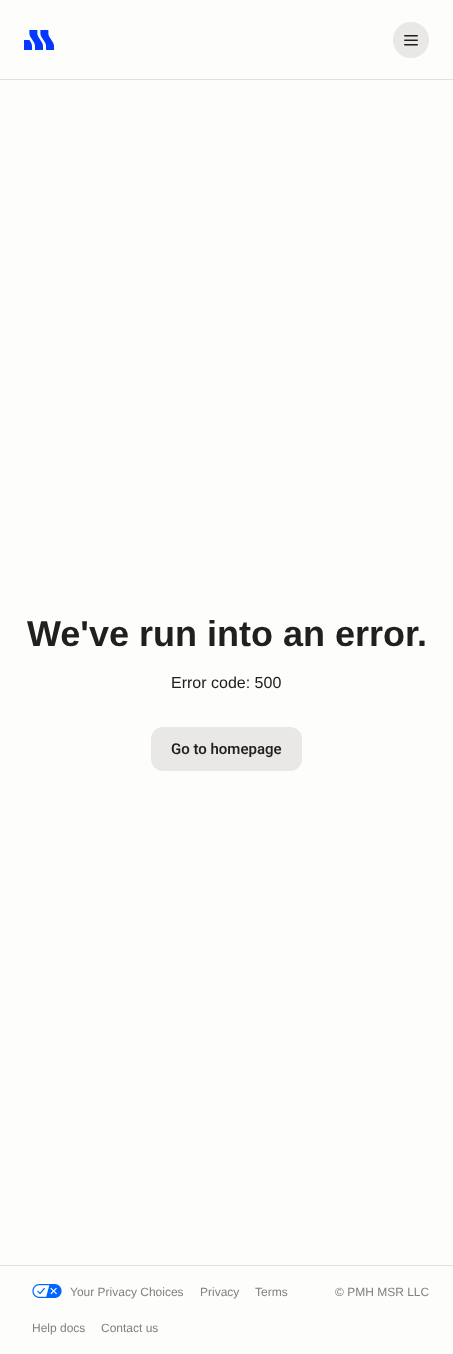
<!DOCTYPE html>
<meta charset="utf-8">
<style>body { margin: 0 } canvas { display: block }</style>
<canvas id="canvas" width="453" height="1354"></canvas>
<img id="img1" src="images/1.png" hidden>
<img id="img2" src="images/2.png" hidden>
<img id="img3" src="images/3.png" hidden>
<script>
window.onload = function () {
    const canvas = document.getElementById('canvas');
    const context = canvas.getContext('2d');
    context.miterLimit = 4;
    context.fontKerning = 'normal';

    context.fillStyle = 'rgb(253, 253, 252)';
    context.fillRect(0, 0, 453, 1354);
    context.fillStyle = 'rgb(226, 225, 222)';
    context.fillRect(0, 79, 453, 1);
    context.drawImage(document.getElementById('img1'), 24, 30, 30, 20);
    context.fillStyle = 'rgb(233, 232, 230)';
    context.beginPath();
    context.arc(411, 40, 18, 0, 2 * Math.PI);
    context.fill();
    context.drawImage(document.getElementById('img2'), 404, 35, 14, 11);
    context.beginPath();
    context.roundRect(151, 727, 151, 44, 12);
    context.fill();
    context.fillStyle = 'rgb(226, 225, 222)';
    context.fillRect(0, 1265, 453, 1);
    context.drawImage(document.getElementById('img3'), 32, 1284, 30, 14);
    context.font = 'bold 36px Liberation Sans';
    context.fillStyle = 'rgb(33, 32, 28)';
    context.fillText('We\'ve run into an error.', 27, 646);
    context.font = '16px Liberation Sans';
    context.fillText('Error code: 500', 171, 688);
    context.font = '500 15px Roboto';
    context.fillText('Go to homepage', 171, 754);
    context.font = '12px Liberation Sans';
    context.fillStyle = 'rgb(130, 130, 124)';
    context.fillText('Your Privacy Choices', 70, 1296);
    context.fillText('Privacy', 200, 1296);
    context.fillText('Terms', 255, 1296);
    context.fillText('Help docs', 32, 1332);
    context.fillText('Contact us', 101, 1332);
    context.fillText('© PMH MSR LLC', 335, 1296);
};
</script>
